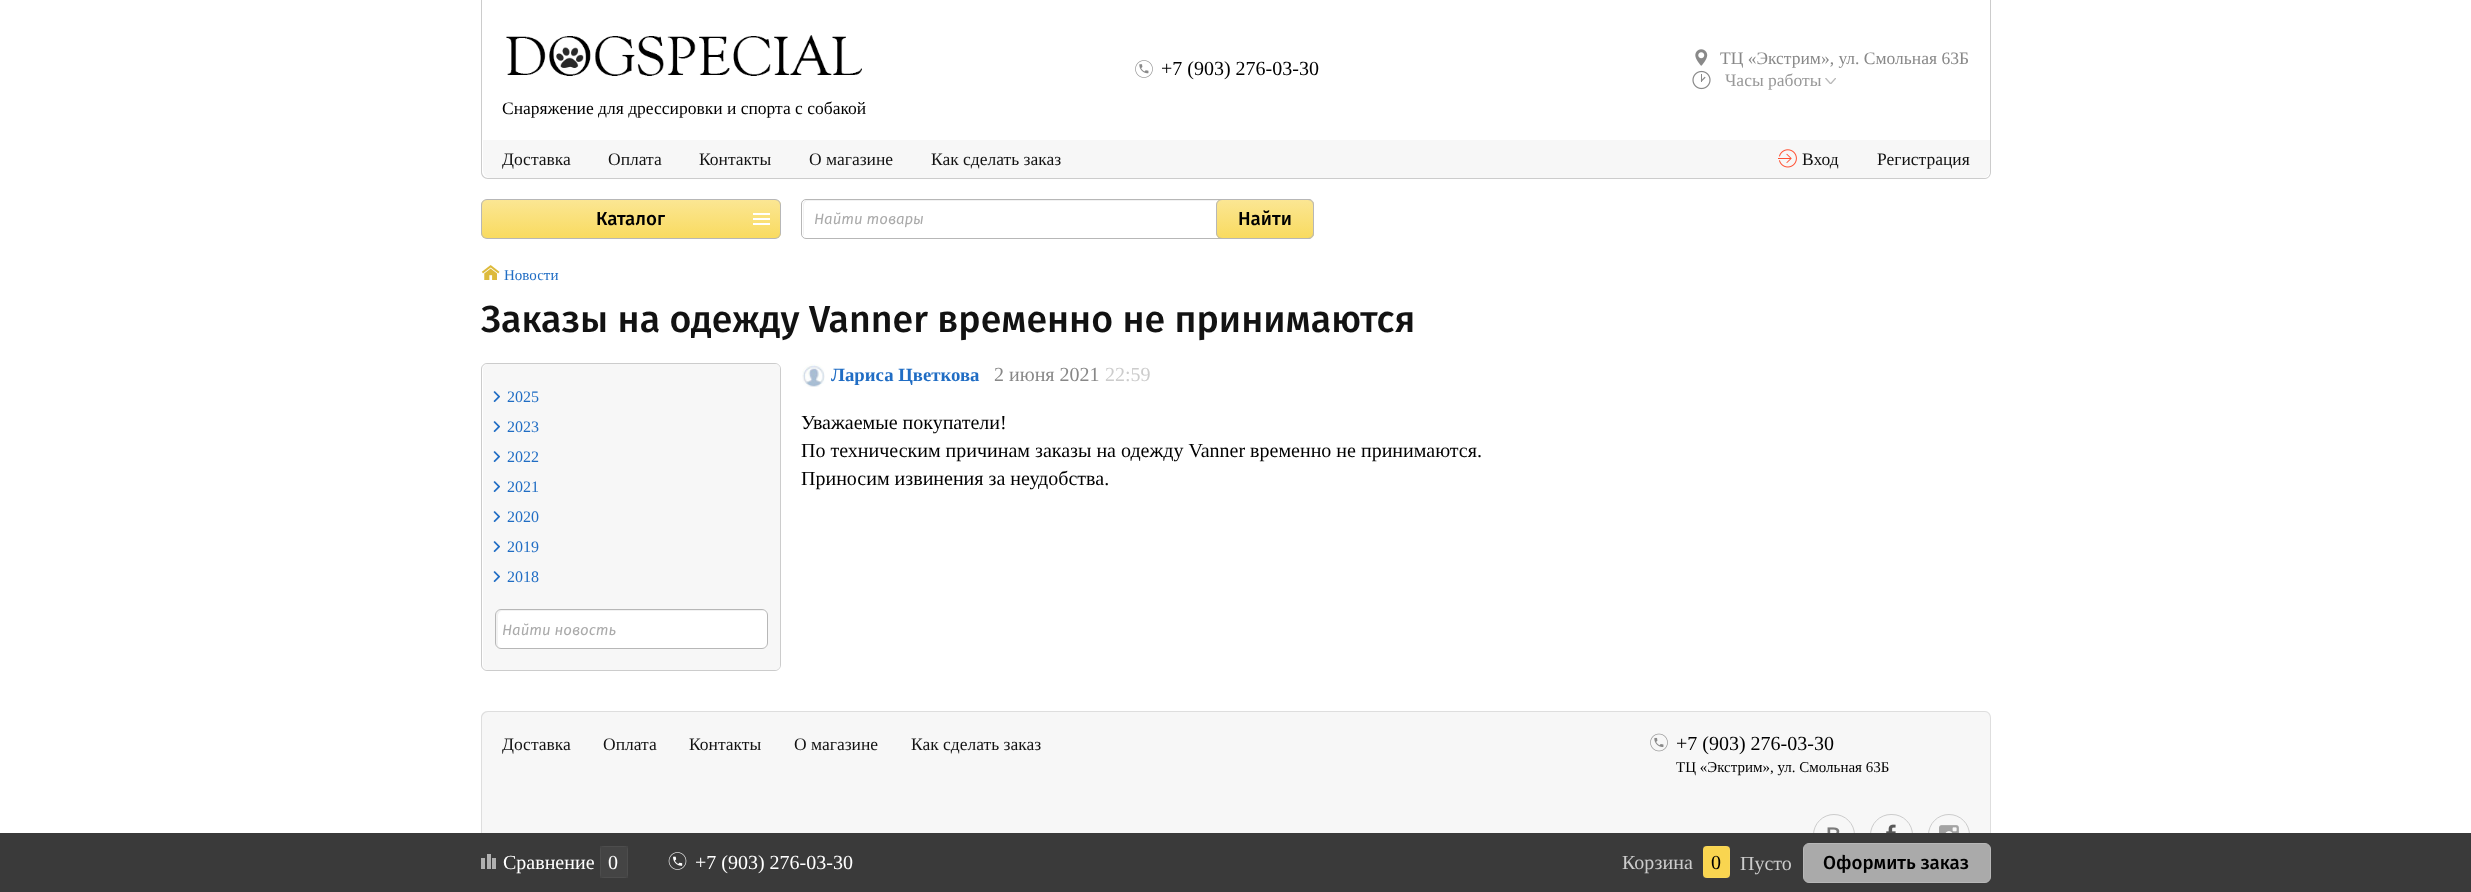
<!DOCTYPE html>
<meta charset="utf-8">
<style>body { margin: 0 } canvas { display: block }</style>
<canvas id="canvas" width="2471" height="892"></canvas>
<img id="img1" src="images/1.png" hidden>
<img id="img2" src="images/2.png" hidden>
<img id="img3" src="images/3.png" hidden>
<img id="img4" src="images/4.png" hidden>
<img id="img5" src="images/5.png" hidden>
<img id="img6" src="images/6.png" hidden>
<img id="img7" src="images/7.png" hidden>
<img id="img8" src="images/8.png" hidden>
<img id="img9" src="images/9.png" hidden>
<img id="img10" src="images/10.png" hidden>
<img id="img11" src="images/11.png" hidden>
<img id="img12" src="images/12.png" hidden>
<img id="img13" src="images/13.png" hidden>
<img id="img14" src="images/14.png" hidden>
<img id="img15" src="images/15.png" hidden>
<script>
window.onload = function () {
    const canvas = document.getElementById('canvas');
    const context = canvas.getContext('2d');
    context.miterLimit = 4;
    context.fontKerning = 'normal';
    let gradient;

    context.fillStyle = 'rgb(255, 255, 255)';
    context.fillRect(0, 0, 2471, 892);
    context.fillStyle = 'rgb(204, 204, 204)';
    context.beginPath();
    context.moveTo(481, 0);
    context.lineTo(1991, 0);
    context.lineTo(1991, 172);
    context.bezierCurveTo(1991, 176, 1988, 179, 1985, 179);
    context.lineTo(488, 179);
    context.bezierCurveTo(484, 179, 481, 176, 481, 172);
    context.closePath();
    context.moveTo(482, 0);
    context.lineTo(1990, 0);
    context.lineTo(1990, 172);
    context.bezierCurveTo(1990, 175, 1988, 178, 1985, 178);
    context.lineTo(488, 178);
    context.bezierCurveTo(485, 178, 482, 175, 482, 172);
    context.closePath();
    context.fill('evenodd');
    context.drawImage(document.getElementById('img1'), 1135, 60, 18, 18);
    context.drawImage(document.getElementById('img2'), 1695, 49, 13, 17);
    context.drawImage(document.getElementById('img3'), 1692, 70, 19, 20);
    context.drawImage(document.getElementById('img4'), 1825, 78, 11, 6);
    context.drawImage(document.getElementById('img5'), 506, 35, 356, 41);
    context.fillStyle = 'rgb(247, 247, 247)';
    context.beginPath();
    context.roundRect(483, 140, 1507, 38, [0, 0, 8, 8]);
    context.fill();
    context.drawImage(document.getElementById('img6'), 1778, 149, 19, 19);
    context.save();
    context.beginPath();
    context.roundRect(481, 199, 300, 40, 6);
    context.clip();
    gradient = context.createLinearGradient(631, 200, 631, 238);
    gradient.addColorStop(0, 'rgb(251, 230, 147)');
    gradient.addColorStop(1, 'rgb(249, 219, 96)');
    context.fillStyle = gradient;
    context.fillRect(481, 200, 300, 38);
    context.restore();
    context.beginPath();
    context.roundRect(481.5, 199.5, 299, 39, 5.5);
    context.strokeStyle = 'rgb(183, 183, 183)';
    context.stroke();
    context.fillStyle = 'rgb(255, 255, 255)';
    context.fillRect(753, 213, 17, 2);
    context.fillRect(753, 218, 17, 2);
    context.fillRect(753, 223, 17, 2);
    context.fillStyle = 'rgb(242, 242, 242)';
    context.beginPath();
    context.moveTo(808, 201);
    context.lineTo(1310, 201);
    context.lineTo(1312, 202);
    context.bezierCurveTo(1312, 201, 1310, 200, 1309, 200);
    context.lineTo(807, 200);
    context.bezierCurveTo(805, 200, 803, 202, 803, 204);
    context.lineTo(803, 234);
    context.bezierCurveTo(803, 235, 804, 236, 804, 237);
    context.lineTo(804, 210);
    context.bezierCurveTo(804, 207, 803, 201, 808, 201);
    context.closePath();
    context.fill();
    context.beginPath();
    context.roundRect(801.5, 199.5, 512, 39, 4.5);
    context.stroke();
    context.save();
    context.beginPath();
    context.roundRect(1216, 199, 98, 40, 6);
    context.clip();
    gradient = context.createLinearGradient(1265, 200, 1265, 238);
    gradient.addColorStop(0, 'rgb(251, 230, 147)');
    gradient.addColorStop(1, 'rgb(249, 219, 96)');
    context.fillStyle = gradient;
    context.fillRect(1216, 200, 98, 38);
    context.restore();
    context.beginPath();
    context.roundRect(1216.5, 199.5, 97, 39, 5.5);
    context.stroke();
    context.drawImage(document.getElementById('img7'), 481, 265, 19, 15);
    context.beginPath();
    context.roundRect(481.5, 363.5, 299, 307, 5.5);
    context.strokeStyle = 'rgb(204, 204, 204)';
    context.stroke();
    context.fillStyle = 'rgb(247, 247, 247)';
    context.beginPath();
    context.roundRect(483, 364, 297, 306, 5);
    context.fill();
    context.drawImage(document.getElementById('img8'), 493, 391, 7, 11);
    context.drawImage(document.getElementById('img8'), 493, 421, 7, 11);
    context.drawImage(document.getElementById('img8'), 493, 451, 7, 11);
    context.drawImage(document.getElementById('img8'), 493, 481, 7, 11);
    context.drawImage(document.getElementById('img8'), 493, 511, 7, 11);
    context.drawImage(document.getElementById('img8'), 493, 541, 7, 11);
    context.drawImage(document.getElementById('img8'), 493, 571, 7, 11);
    context.fillStyle = 'rgb(255, 255, 255)';
    context.beginPath();
    context.roundRect(495, 609, 273, 40, 6);
    context.fill();
    context.fillStyle = 'rgb(242, 242, 242)';
    context.beginPath();
    context.moveTo(502, 611);
    context.lineTo(762, 611);
    context.lineTo(765, 611);
    context.bezierCurveTo(764, 611, 762, 610, 761, 610);
    context.lineTo(501, 610);
    context.bezierCurveTo(498, 610, 496, 612, 496, 615);
    context.lineTo(496, 643);
    context.bezierCurveTo(496, 645, 497, 647, 499, 648);
    context.bezierCurveTo(499, 647, 498, 646, 498, 644);
    context.lineTo(498, 616);
    context.bezierCurveTo(498, 613, 500, 611, 502, 611);
    context.closePath();
    context.fill();
    context.beginPath();
    context.roundRect(495.5, 609.5, 272, 39, 5.5);
    context.strokeStyle = 'rgb(183, 183, 183)';
    context.stroke();
    context.drawImage(document.getElementById('img9'), 802, 364, 23, 23);
    context.fillStyle = 'rgb(247, 247, 247)';
    context.beginPath();
    context.moveTo(487, 711);
    context.lineTo(1985, 711);
    context.bezierCurveTo(1988.5, 711, 1991, 713.5, 1991, 717);
    context.lineTo(1991, 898);
    context.lineTo(481, 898);
    context.lineTo(481, 717);
    context.bezierCurveTo(481, 713.5, 483.5, 711, 487, 711);
    context.closePath();
    context.fill();
    context.fillStyle = 'rgb(222, 222, 222)';
    context.beginPath();
    context.moveTo(488, 711);
    context.lineTo(1985, 711);
    context.bezierCurveTo(1988, 711, 1991, 714, 1991, 718);
    context.lineTo(1991, 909);
    context.lineTo(481, 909);
    context.lineTo(481, 718);
    context.bezierCurveTo(481, 714, 484, 711, 488, 711);
    context.closePath();
    context.moveTo(488, 712);
    context.lineTo(1985, 712);
    context.bezierCurveTo(1988, 712, 1990, 715, 1990, 718);
    context.lineTo(1990, 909);
    context.lineTo(482, 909);
    context.lineTo(482, 718);
    context.bezierCurveTo(482, 715, 485, 712, 488, 712);
    context.closePath();
    context.fill('evenodd');
    context.drawImage(document.getElementById('img10'), 1650, 733, 18, 19);
    context.beginPath();
    context.arc(1834, 835, 20.5, 0, 2 * Math.PI);
    context.strokeStyle = 'rgb(204, 204, 204)';
    context.stroke();
    context.drawImage(document.getElementById('img11'), 1827, 827, 13, 6);
    context.beginPath();
    context.roundRect(1870.5, 814.5, 42, 41, 20.5);
    context.stroke();
    context.drawImage(document.getElementById('img12'), 1886, 824, 10, 9);
    context.beginPath();
    context.arc(1949, 835, 20.5, 0, 2 * Math.PI);
    context.stroke();
    context.drawImage(document.getElementById('img13'), 1939, 825, 20, 8);
    context.fillStyle = 'rgb(58, 58, 58)';
    context.fillRect(0, 833, 2471, 59);
    context.drawImage(document.getElementById('img14'), 481, 854, 15, 15);
    context.fillStyle = 'rgb(68, 68, 68)';
    context.beginPath();
    context.roundRect(600, 846, 28, 32, 4);
    context.fill();
    context.strokeStyle = 'rgba(255, 255, 255, 0.05)';
    context.strokeRect(600.5, 846.5, 27, 31);
    context.drawImage(document.getElementById('img15'), 668, 852, 19, 18);
    context.fillStyle = 'rgb(249, 213, 80)';
    context.beginPath();
    context.roundRect(1703, 846, 27, 32, 4);
    context.fill();
    context.strokeRect(1703.5, 846.5, 26, 31);
    context.fillStyle = 'rgb(170, 170, 170)';
    context.beginPath();
    context.roundRect(1803.5, 843.5, 187, 39, 5.5);
    context.fill();
    context.strokeStyle = 'rgb(183, 183, 183)';
    context.stroke();
    context.font = '20px Liberation Serif';
    context.fillStyle = 'rgb(0, 0, 0)';
    context.fillText('+7 (903) 276-03-30', 1161, 75);
    context.font = '17.5px Liberation Serif';
    context.fillStyle = 'rgb(136, 136, 136)';
    context.fillText('ТЦ «Экстрим», ул. Смольная 63Б', 1720, 64);
    context.fillStyle = 'rgb(153, 153, 153)';
    context.fillText('Часы работы', 1725, 86);
    context.fillStyle = 'rgb(0, 0, 0)';
    context.fillText('Снаряжение для дрессировки и спорта с собакой', 502, 114);
    context.fillStyle = 'rgb(18, 18, 18)';
    context.fillText('Доставка', 502, 165);
    context.fillText('Оплата', 608, 165);
    context.fillText('Контакты', 699, 165);
    context.fillText('О магазине', 809, 165);
    context.fillText('Как сделать заказ', 931, 165);
    context.fillText('Вход', 1802, 165);
    context.fillText('Регистрация', 1877, 165);
    context.font = '500 18.75px Fira Sans';
    context.fillStyle = 'rgb(0, 0, 0)';
    context.fillText('Каталог', 596, 225);
    context.font = 'italic 15px Fira Sans';
    context.fillStyle = 'rgb(170, 170, 170)';
    context.fillText('Найти товары', 814, 224);
    context.font = '500 18.75px Fira Sans';
    context.fillStyle = 'rgb(0, 0, 0)';
    context.fillText('Найти', 1238, 225);
    context.font = '15px Liberation Serif';
    context.fillStyle = 'rgb(32, 109, 196)';
    context.fillText('Новости', 504, 280);
    context.font = '500 37.5px Fira Sans';
    context.fillStyle = 'rgb(18, 18, 18)';
    context.fillText('Заказы на одежду Vanner временно не принимаются', 481, 332);
    context.font = '16px Liberation Serif';
    context.fillStyle = 'rgb(32, 109, 196)';
    context.fillText('2025', 507, 402);
    context.fillText('2023', 507, 432);
    context.fillText('2022', 507, 462);
    context.fillText('2021', 507, 492);
    context.fillText('2020', 507, 522);
    context.fillText('2019', 507, 552);
    context.fillText('2018', 507, 582);
    context.font = 'italic 15px Fira Sans';
    context.fillStyle = 'rgb(170, 170, 170)';
    context.fillText('Найти новость', 502, 635);
    context.font = 'bold 18.75px Liberation Serif';
    context.fillStyle = 'rgb(32, 109, 196)';
    context.fillText('Лариса Цветкова', 831, 381);
    context.font = '20px Liberation Serif';
    context.fillStyle = 'rgb(136, 136, 136)';
    context.fillText('2 июня 2021', 994, 381);
    context.fillStyle = 'rgb(204, 204, 204)';
    context.fillText('22:59', 1105, 381);
    context.fillStyle = 'rgb(0, 0, 0)';
    context.fillText('Уважаемые покупатели!', 801, 429);
    context.fillText('По техническим причинам заказы на одежду Vanner временно не принимаются.', 801, 457);
    context.fillText('Приносим извинения за неудобства.', 801, 485);
    context.font = '17.5px Liberation Serif';
    context.fillStyle = 'rgb(18, 18, 18)';
    context.fillText('Доставка', 502, 750);
    context.fillText('Оплата', 603, 750);
    context.fillText('Контакты', 689, 750);
    context.fillText('О магазине', 794, 750);
    context.fillText('Как сделать заказ', 911, 750);
    context.font = '20px Liberation Serif';
    context.fillStyle = 'rgb(0, 0, 0)';
    context.fillText('+7 (903) 276-03-30', 1676, 750);
    context.font = '15px Liberation Serif';
    context.fillText('ТЦ «Экстрим», ул. Смольная 63Б', 1676, 772);
    context.font = '20px Liberation Serif';
    context.fillStyle = 'rgb(255, 255, 255)';
    context.fillText('Сравнение', 503, 869);
    context.fillText('0', 608, 869);
    context.fillText('+7 (903) 276-03-30', 695, 869);
    context.fillStyle = 'rgb(204, 204, 204)';
    context.fillText('Корзина', 1622, 869);
    context.fillStyle = 'rgb(0, 0, 0)';
    context.fillText('0', 1711, 869);
    context.fillStyle = 'rgb(204, 204, 204)';
    context.fillText('Пусто', 1740, 870);
    context.font = '500 18.75px Fira Sans';
    context.fillStyle = 'rgb(0, 0, 0)';
    context.fillText('Оформить заказ', 1823, 869);
};
</script>
